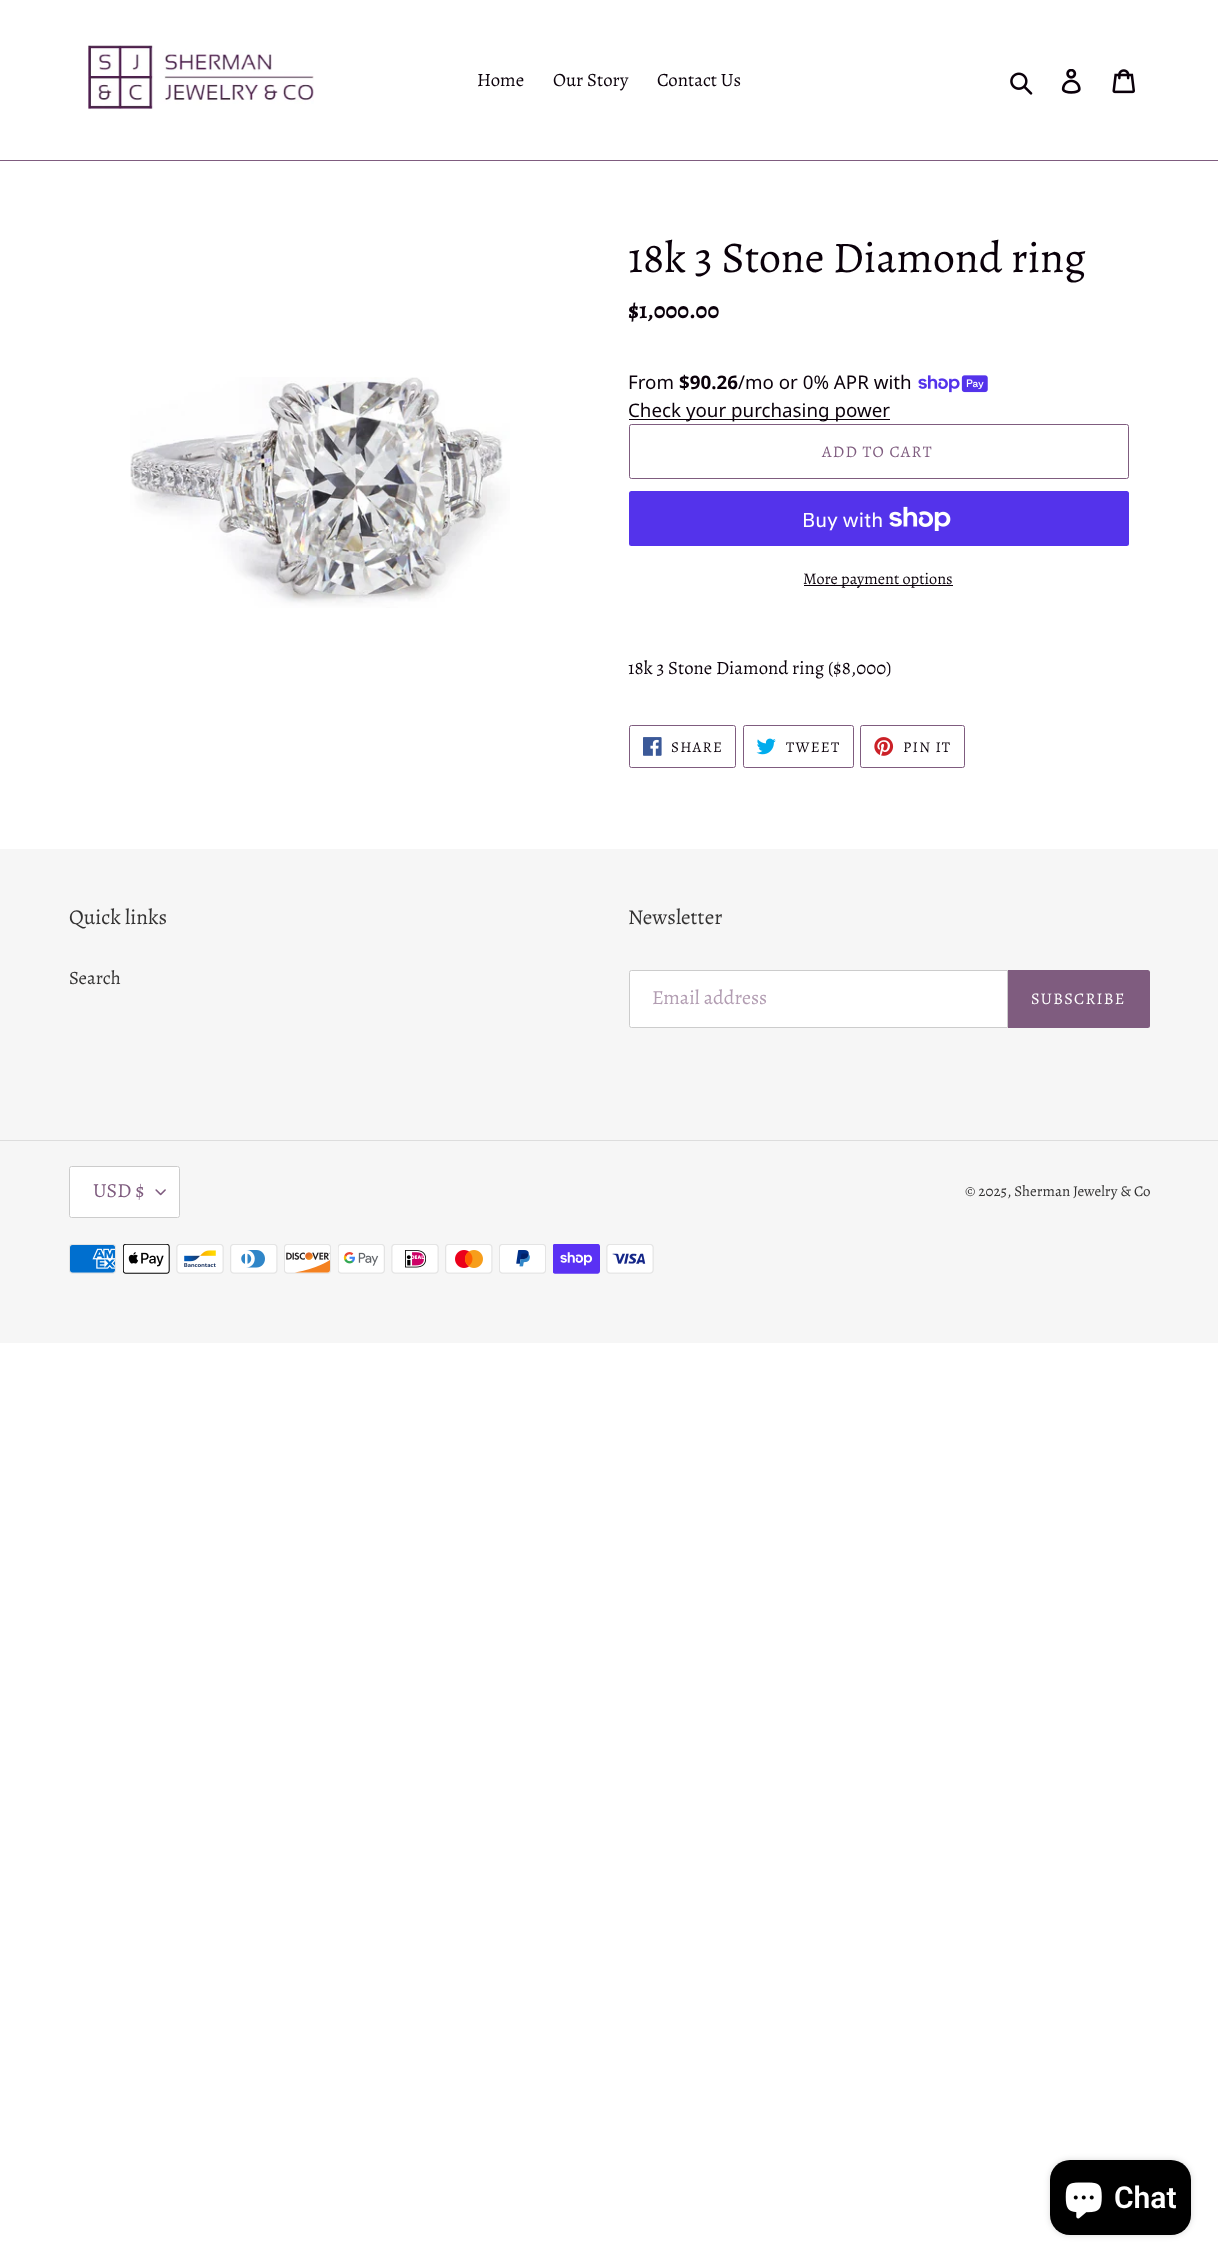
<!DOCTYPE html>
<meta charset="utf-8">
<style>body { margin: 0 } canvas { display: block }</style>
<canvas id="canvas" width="1218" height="2261"></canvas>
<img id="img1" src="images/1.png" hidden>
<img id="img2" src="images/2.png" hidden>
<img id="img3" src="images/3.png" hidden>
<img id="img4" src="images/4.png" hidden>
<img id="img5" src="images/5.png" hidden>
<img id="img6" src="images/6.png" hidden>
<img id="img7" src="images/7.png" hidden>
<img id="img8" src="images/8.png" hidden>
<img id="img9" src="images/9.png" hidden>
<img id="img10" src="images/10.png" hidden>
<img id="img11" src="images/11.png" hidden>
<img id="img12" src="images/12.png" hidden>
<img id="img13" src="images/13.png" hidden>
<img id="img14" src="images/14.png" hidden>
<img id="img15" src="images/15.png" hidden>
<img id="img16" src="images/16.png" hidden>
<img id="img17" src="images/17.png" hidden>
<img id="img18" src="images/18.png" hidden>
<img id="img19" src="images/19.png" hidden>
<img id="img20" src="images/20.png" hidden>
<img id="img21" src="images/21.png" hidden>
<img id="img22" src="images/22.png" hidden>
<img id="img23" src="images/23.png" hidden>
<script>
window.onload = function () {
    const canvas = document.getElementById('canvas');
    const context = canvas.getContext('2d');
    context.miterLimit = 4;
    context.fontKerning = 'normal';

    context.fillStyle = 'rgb(255, 255, 255)';
    context.fillRect(0, 0, 1218, 2261);
    context.fillStyle = 'rgb(127, 92, 127)';
    context.fillRect(0, 160, 1218, 1);
    context.drawImage(document.getElementById('img1'), 88, 45, 226, 65);
    context.drawImage(document.getElementById('img2'), 1010, 72, 23, 23);
    context.drawImage(document.getElementById('img3'), 1061, 69, 20, 25);
    context.drawImage(document.getElementById('img4'), 1112, 69, 23, 25);
    context.drawImage(document.getElementById('img5'), 130, 377, 380, 231);
    context.drawImage(document.getElementById('img6'), 918, 375, 70, 18);
    context.fillStyle = 'rgb(10, 0, 10)';
    context.fillRect(629, 419, 261, 1);
    context.beginPath();
    context.roundRect(629.5, 424.5, 499, 54, 2);
    context.strokeStyle = 'rgb(127, 92, 127)';
    context.stroke();
    context.fillStyle = 'rgb(84, 51, 235)';
    context.beginPath();
    context.roundRect(629, 491, 500, 55, 2.5);
    context.fill();
    context.drawImage(document.getElementById('img7'), 889, 506, 62, 25);
    context.fillStyle = 'rgb(10, 0, 10)';
    context.fillRect(804, 585, 149, 1);
    context.beginPath();
    context.roundRect(629.5, 725.5, 106, 42, 2);
    context.stroke();
    context.drawImage(document.getElementById('img8'), 643, 737, 19, 19);
    context.beginPath();
    context.roundRect(743.5, 725.5, 110, 42, 2);
    context.stroke();
    context.drawImage(document.getElementById('img9'), 756, 738, 20, 17);
    context.beginPath();
    context.roundRect(860.5, 725.5, 104, 42, 2);
    context.stroke();
    context.drawImage(document.getElementById('img10'), 874, 737, 20, 19);
    context.fillStyle = 'rgb(246, 246, 246)';
    context.fillRect(0, 849, 1218, 494);
    context.fillStyle = 'rgb(255, 255, 255)';
    context.beginPath();
    context.roundRect(629.5, 970.5, 378, 57, [2, 0, 0, 2]);
    context.fill();
    context.strokeStyle = 'rgb(204, 204, 204)';
    context.stroke();
    context.fillStyle = 'rgb(127, 92, 127)';
    context.beginPath();
    context.roundRect(1008, 970, 142, 58, [0, 2.5, 2.5, 0]);
    context.fill();
    context.fillStyle = 'rgb(221, 221, 221)';
    context.fillRect(0, 1140, 1218, 1);
    context.fillStyle = 'rgb(255, 255, 255)';
    context.beginPath();
    context.roundRect(69, 1166, 111, 52, 2.5);
    context.fill();
    context.drawImage(document.getElementById('img11'), 155, 1189, 11, 7);
    context.beginPath();
    context.roundRect(69.5, 1166.5, 110, 51, 2);
    context.stroke();
    context.drawImage(document.getElementById('img12'), 69, 1244, 47, 30);
    context.drawImage(document.getElementById('img13'), 123, 1244, 47, 30);
    context.drawImage(document.getElementById('img14'), 176, 1244, 48, 30);
    context.drawImage(document.getElementById('img15'), 230, 1244, 48, 30);
    context.drawImage(document.getElementById('img16'), 284, 1244, 47, 30);
    context.drawImage(document.getElementById('img17'), 338, 1244, 47, 30);
    context.drawImage(document.getElementById('img18'), 391, 1244, 48, 30);
    context.drawImage(document.getElementById('img19'), 445, 1244, 48, 30);
    context.drawImage(document.getElementById('img20'), 499, 1244, 47, 30);
    context.drawImage(document.getElementById('img21'), 553, 1244, 47, 30);
    context.drawImage(document.getElementById('img22'), 606, 1244, 48, 30);
    context.fillStyle = 'rgba(0, 0, 0, 0.15)';
    context.filter = 'blur(3px)';
    context.beginPath();
    context.roundRect(1050, 2160, 141, 75, 20);
    context.fill();
    context.filter = 'none';
    context.fillStyle = 'rgb(0, 0, 0)';
    context.beginPath();
    context.roundRect(1050, 2160, 141, 75, 20);
    context.fill();
    context.drawImage(document.getElementById('img23'), 1065, 2182, 37, 37);
    context.font = '18.75px Alegreya';
    context.fillStyle = 'rgb(10, 0, 10)';
    context.fillText('Home', 477, 86);
    context.fillText('Our Story', 553, 86);
    context.fillText('Contact Us', 657, 86);
    context.font = '43.75px Alegreya';
    context.fillText('18k 3 Stone Diamond ring', 628, 272);
    context.font = 'bold 23.5px Alegreya';
    context.fillText('$1,000.00', 628, 318);
    context.font = '18.75px Noto Sans';
    context.fillText('From', 628, 389);
    context.font = 'bold 18.75px Noto Sans';
    context.fillText('$90.26', 679, 389);
    context.font = '18.75px Noto Sans';
    context.fillText('/mo or 0% APR with', 738, 389);
    context.fillText('Check your purchasing power', 628, 417);
    context.letterSpacing = '1.25px';
    context.font = '16.25px Alegreya';
    context.fillStyle = 'rgb(127, 92, 127)';
    context.fillText('ADD TO CART', 822, 457);
    context.letterSpacing = '0px';
    context.font = '20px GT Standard';
    context.fillStyle = 'rgb(255, 255, 255)';
    context.fillText('Buy with', 802, 527);
    context.font = '16.25px Alegreya';
    context.fillStyle = 'rgb(10, 0, 10)';
    context.fillText('More payment options', 803, 584);
    context.font = '18.75px Alegreya';
    context.fillText('18k 3 Stone Diamond ring ($8,000)', 628, 674);
    context.letterSpacing = '1.25px';
    context.font = '15px Alegreya';
    context.fillText('SHARE', 671, 752);
    context.fillText('TWEET', 786, 752);
    context.fillText('PIN IT', 903, 752);
    context.letterSpacing = '0px';
    context.font = '21.25px Alegreya';
    context.fillStyle = 'rgb(51, 50, 50)';
    context.fillText('Quick links', 69, 924);
    context.font = '18.75px Alegreya';
    context.fillText('Search', 69, 984);
    context.font = '21.25px Alegreya';
    context.fillText('Newsletter', 628, 924);
    context.font = '20px Alegreya';
    context.fillStyle = 'rgb(178, 157, 178)';
    context.fillText('Email address', 652, 1004);
    context.letterSpacing = '1.25px';
    context.font = '16.25px Alegreya';
    context.fillStyle = 'rgb(255, 255, 255)';
    context.fillText('SUBSCRIBE', 1031, 1004);
    context.letterSpacing = '0px';
    context.font = '20px Alegreya';
    context.fillStyle = 'rgb(127, 92, 127)';
    context.fillText('USD $', 93, 1197);
    context.font = '15px Alegreya';
    context.fillStyle = 'rgb(51, 50, 50)';
    context.fillText('© 2025, Sherman Jewelry & Co', 965, 1196);
    context.font = '600 30px Roboto';
    context.fillStyle = 'rgb(255, 255, 255)';
    context.fillText('Chat', 1114, 2208);
};
</script>
